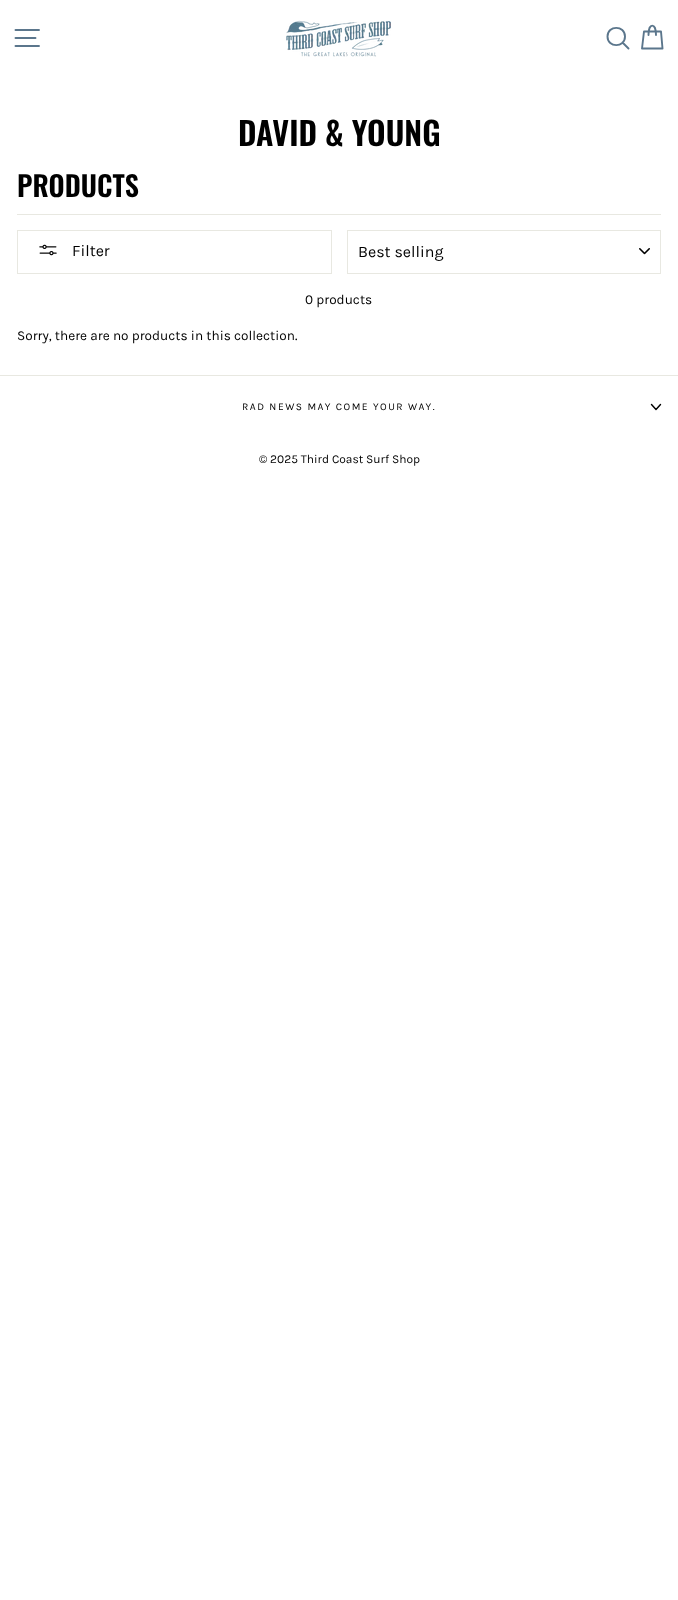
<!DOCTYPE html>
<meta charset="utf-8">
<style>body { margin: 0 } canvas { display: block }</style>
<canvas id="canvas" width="678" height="1600"></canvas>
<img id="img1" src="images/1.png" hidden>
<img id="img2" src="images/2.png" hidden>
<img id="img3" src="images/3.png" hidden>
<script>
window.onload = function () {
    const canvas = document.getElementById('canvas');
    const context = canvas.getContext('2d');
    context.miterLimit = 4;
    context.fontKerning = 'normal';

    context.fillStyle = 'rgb(255, 255, 255)';
    context.fillRect(0, 0, 678, 1600);
    context.beginPath();
    context.moveTo(15.5, 30);
    context.lineTo(39, 30);
    context.moveTo(15.5, 38);
    context.lineTo(35.5, 38);
    context.moveTo(15.5, 46);
    context.lineTo(39, 46);
    context.strokeStyle = 'rgb(91, 118, 140)';
    context.lineWidth = 1.9;
    context.lineCap = 'round';
    context.lineJoin = 'round';
    context.stroke();
    context.drawImage(document.getElementById('img1'), 286, 20, 105, 37);
    context.beginPath();
    context.moveTo(625, 36.5);
    context.bezierCurveTo(625, 48, 607.5, 48, 607.5, 36.5);
    context.bezierCurveTo(607.5, 25, 625, 25, 625, 36.5);
    context.closePath();
    context.moveTo(628.5, 48.5);
    context.lineTo(622.5, 42.5);
    context.moveTo(648.5, 35);
    context.bezierCurveTo(648.5, 22.5, 656, 22.5, 656, 35);
    context.moveTo(644, 31.5);
    context.lineTo(661, 31.5);
    context.lineTo(662.5, 48.5);
    context.lineTo(642, 48.5);
    context.closePath();
    context.stroke();
    context.fillStyle = 'rgb(232, 232, 225)';
    context.fillRect(17, 214, 644, 1);
    context.strokeStyle = 'rgb(232, 232, 225)';
    context.lineWidth = 1;
    context.lineJoin = 'miter';
    context.strokeRect(17.5, 230.5, 314, 43);
    context.drawImage(document.getElementById('img2'), 39, 244, 18, 12);
    context.drawImage(document.getElementById('img3'), 639, 248, 11, 7);
    context.strokeRect(347.5, 230.5, 313, 43);
    context.fillRect(0, 375, 678, 1);
    context.beginPath();
    context.moveTo(651.5, 404.5);
    context.lineTo(656, 409.5);
    context.lineTo(660.5, 404.5);
    context.strokeStyle = 'rgb(0, 0, 0)';
    context.lineWidth = 1.4;
    context.lineJoin = 'round';
    context.stroke();
    context.font = '600 32.25px Oswald';
    context.fillStyle = 'rgb(0, 0, 0)';
    context.fillText('DAVID & YOUNG', 238, 146);
    context.font = '600 28px Oswald';
    context.fillText('PRODUCTS', 17, 197);
    context.font = '16px Karla';
    context.fillText('Filter', 72, 256);
    context.fillText('Best selling', 358, 257);
    context.font = '13.6px Karla';
    context.fillText('0 products', 305, 304);
    context.fillText('Sorry, there are no products in this collection.', 17, 340);
    context.letterSpacing = '1.5px';
    context.font = '10.25px Karla';
    context.fillText('RAD NEWS MAY COME YOUR WAY.', 242, 410);
    context.letterSpacing = '0px';
    context.font = '12px Karla';
    context.fillText('© 2025 Third Coast Surf Shop', 259, 463);
};
</script>
